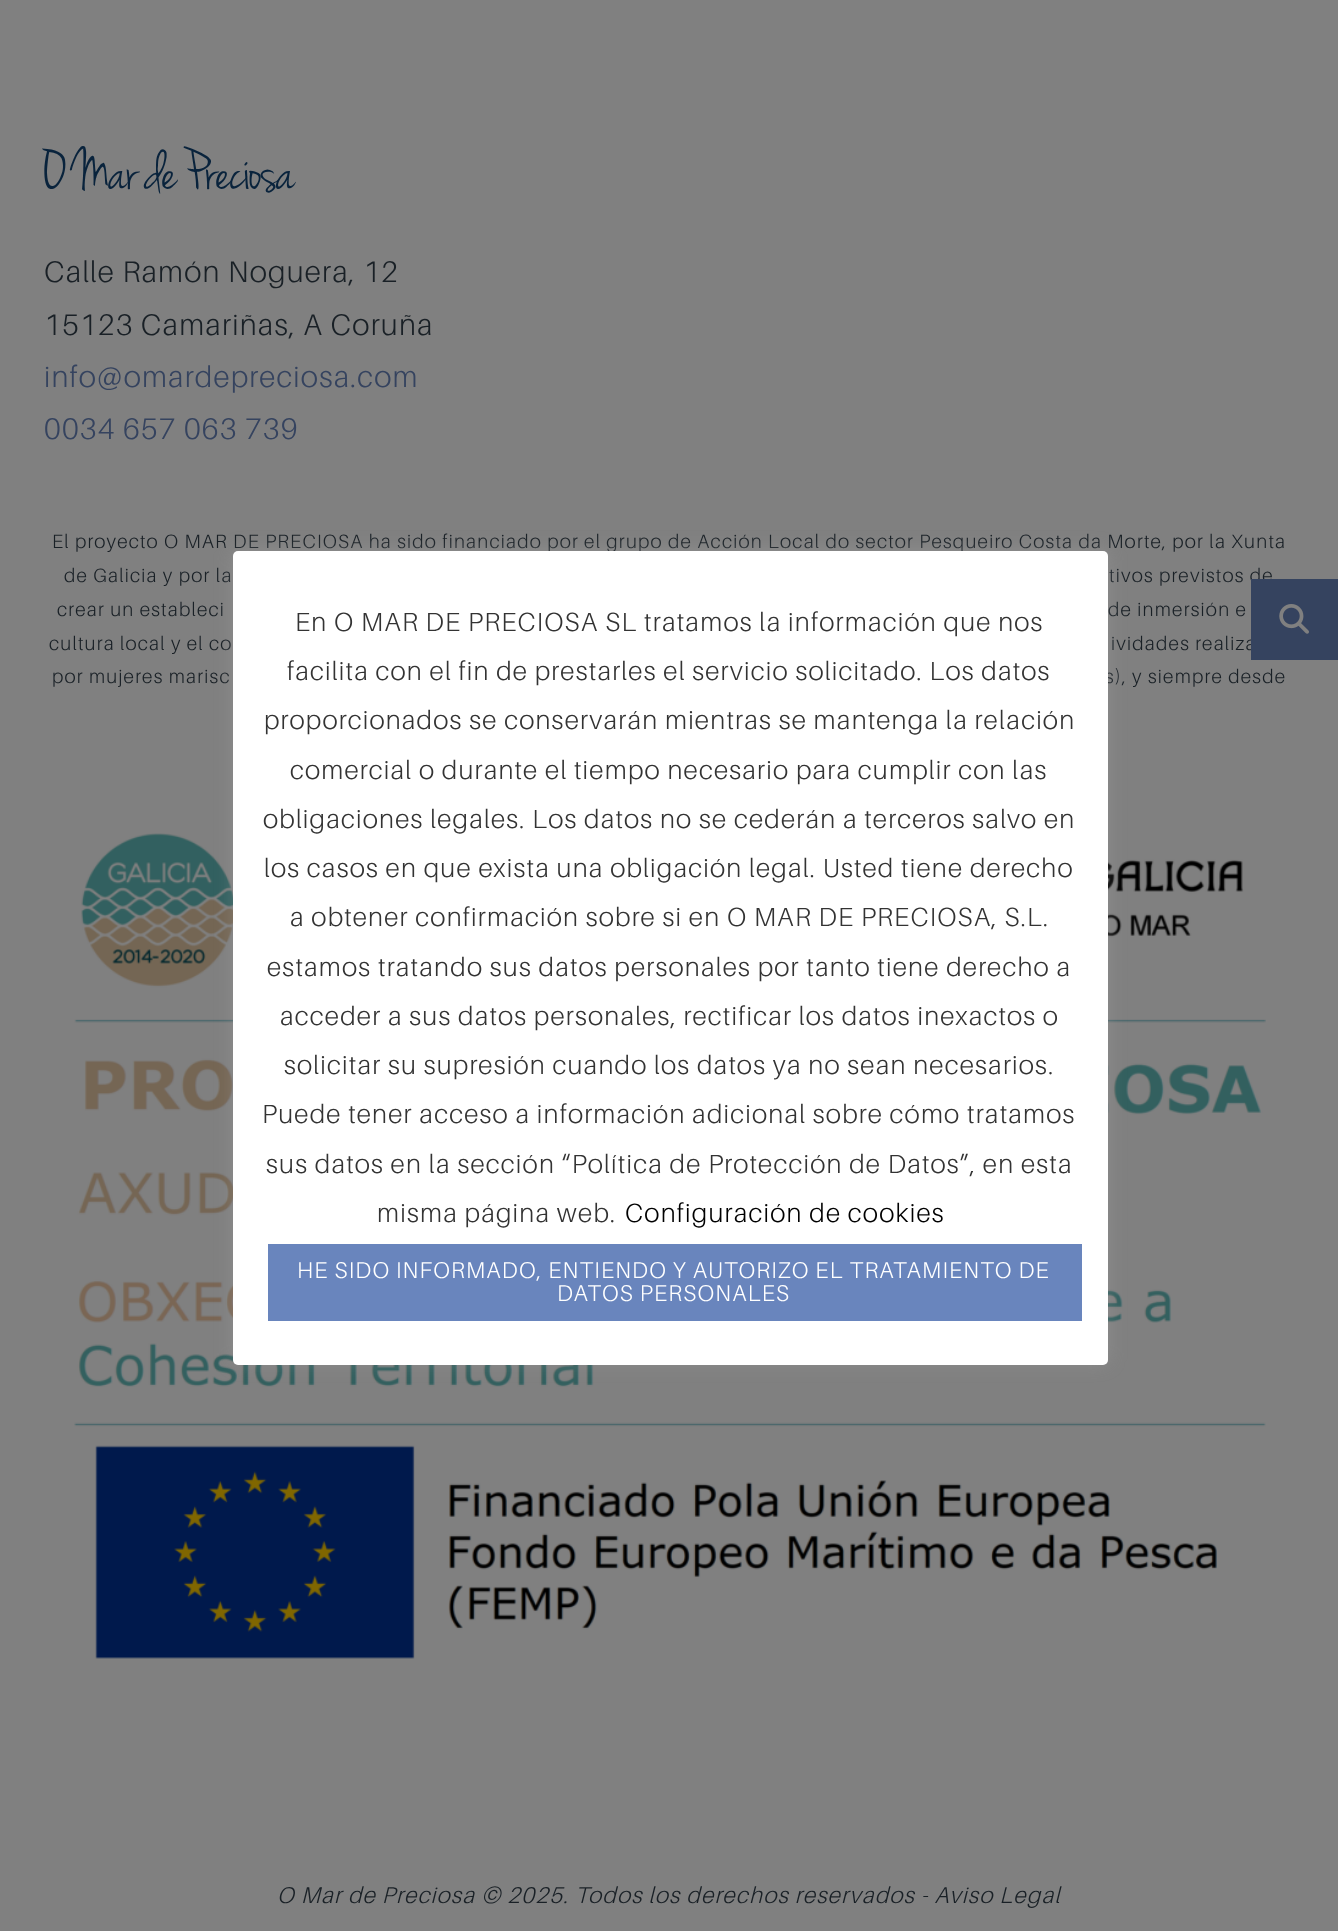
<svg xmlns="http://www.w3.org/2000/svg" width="1338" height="1931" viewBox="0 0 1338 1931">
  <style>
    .t1 { font: 61.25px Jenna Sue; letter-spacing: -1.25px; fill: #09233c; }
    .t2 { font: 300 29.75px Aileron; letter-spacing: 1.22px; fill: #192026; }
    .t3 { font: 300 29.75px Aileron; letter-spacing: 1.22px; fill: #35435f; }
    .t4 { font: 300 19.25px Aileron; letter-spacing: 1.22px; fill: #192026; }
    .t5 { font: italic 300 22.75px Aileron; letter-spacing: 1.22px; fill: #192026; }
    .t6 { font: 300 26.25px Aileron; letter-spacing: 1.22px; fill: #333; }
    .t7 { font: 300 26.25px Aileron; letter-spacing: 1.22px; fill: #000; }
    .t8 { font: 300 22.75px Aileron; letter-spacing: 1.22px; fill: #fff; }
  </style>
  <rect width="100%" height="100%" fill="#808080"/>
  <text x="44" y="189" class="t1">O Mar de Preciosa</text>
  <text x="44" y="282" class="t2">Calle Ramón Noguera, 12</text>
  <text x="44" y="335" class="t2">15123 Camariñas, A Coruña</text>
  <text x="44" y="387" class="t3">info@omardepreciosa.com</text>
  <text x="44" y="439" class="t3">0034 657 063 739</text>
  <text x="52" y="548" class="t4">El proyecto O MAR DE PRECIOSA ha sido financiado por el grupo de Acción Local do sector Pesqueiro Costa da Morte, por la Xunta</text>
  <text x="64" y="582" class="t4">de Galicia y por la</text>
  <text x="1109" y="582" class="t4">tivos previstos de</text>
  <text x="57" y="616" class="t4">crear un estableci</text>
  <text x="1108" y="616" class="t4">de inmersión e</text>
  <text x="49" y="650" class="t4">cultura local y el co</text>
  <text x="1111" y="650" class="t4">ividades realiza</text>
  <text x="52" y="683" class="t4">por mujeres marisc</text>
  <text x="1105" y="683" class="t4">s), y siempre desde</text>
  <image x="74" y="833" width="1192" height="826" href="images/1.png"/>
  <text x="277" y="1903" class="t5">O Mar de Preciosa © 2025. Todos los derechos reservados - Aviso Legal</text>
  <rect x="1251" y="579" width="87" height="81" fill="#35435f"/>
  <image x="1279" y="604" width="30" height="30" href="images/2.png"/>
  <rect x="233" y="550" width="875" height="813" rx="5" fill="#acabab4d" filter="blur(9px)"/>
  <rect x="233" y="551" width="875" height="814" rx="5" fill="#fff"/>
  <text x="295" y="631" class="t6">En O MAR DE PRECIOSA SL tratamos la información que nos</text>
  <text x="287" y="680" class="t6">facilita con el fin de prestarles el servicio solicitado. Los datos</text>
  <text x="264" y="729" class="t6">proporcionados se conservarán mientras se mantenga la relación</text>
  <text x="290" y="779" class="t6">comercial o durante el tiempo necesario para cumplir con las</text>
  <text x="263" y="828" class="t6">obligaciones legales. Los datos no se cederán a terceros salvo en</text>
  <text x="264" y="877" class="t6">los casos en que exista una obligación legal. Usted tiene derecho</text>
  <text x="290" y="926" class="t6">a obtener confirmación sobre si en O MAR DE PRECIOSA, S.L.</text>
  <text x="267" y="976" class="t6">estamos tratando sus datos personales por tanto tiene derecho a</text>
  <text x="280" y="1025" class="t6">acceder a sus datos personales, rectificar los datos inexactos o</text>
  <text x="284" y="1074" class="t6">solicitar su supresión cuando los datos ya no sean necesarios.</text>
  <text x="262" y="1123" class="t6">Puede tener acceso a información adicional sobre cómo tratamos</text>
  <text x="266" y="1173" class="t6">sus datos en la sección “Política de Protección de Datos”, en esta</text>
  <text x="377" y="1222" class="t6">misma página web.</text>
  <text x="625" y="1222" class="t7">Configuración de cookies</text>
  <rect x="268" y="1244" width="814" height="77" fill="#6985bd"/>
  <text x="297" y="1278" class="t8">HE SIDO INFORMADO, ENTIENDO Y AUTORIZO EL TRATAMIENTO DE</text>
  <text x="557" y="1301" class="t8">DATOS PERSONALES</text>
</svg>
